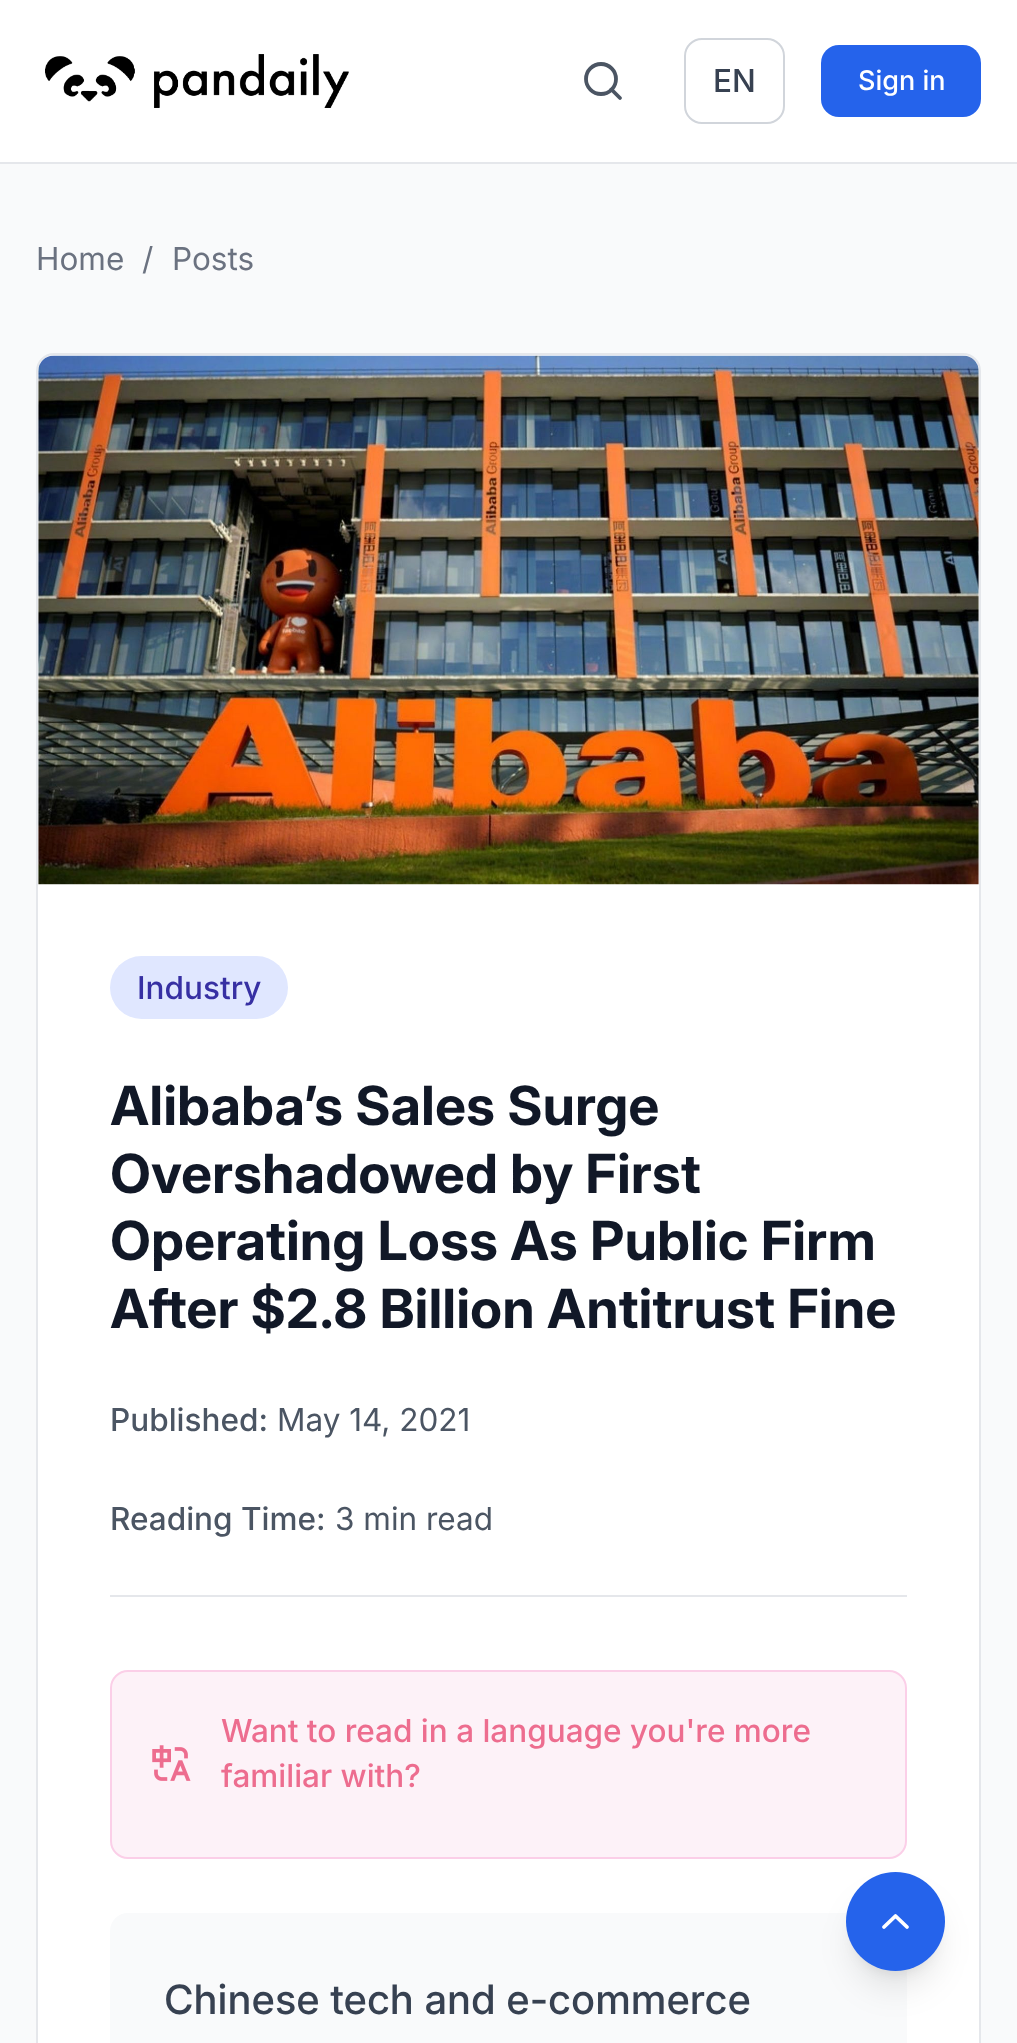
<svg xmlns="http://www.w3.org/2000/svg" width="1017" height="2043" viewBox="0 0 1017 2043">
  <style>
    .t1 { font: 500 31.5px Inter; fill: #374151; }
    .t2 { font: 500 27px Inter; fill: #fff; }
    .t3 { font: 31.5px Inter; fill: #6b7280; }
    .t4 { font: 500 31.5px Inter; fill: #3730a3; }
    .t5 { font: bold 54px Inter; fill: #111827; }
    .t6 { font: 500 31.5px Inter; fill: #4b5563; }
    .t7 { font: 31.5px Inter; fill: #4b5563; }
    .t8 { font: 500 31.5px Inter; fill: #ed6d8f; }
    .t9 { font: 500 40.5px 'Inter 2'; fill: #374151; }
  </style>
  <rect width="100%" height="100%" fill="#fff"/>
  <rect x="0" y="162" width="1017" height="2" fill="#e5e7eb"/>
  <image x="45" y="54" width="304" height="54" href="images/1.png"/>
  <path d="M620 98L611.5 89.5" fill="none" stroke="#4b5563" stroke-width="3.8" stroke-linecap="round" stroke-linejoin="round"/>
  <circle cx="601" cy="79" r="15" fill="none" stroke="#4b5563" stroke-width="3.8"/>
  <rect x="685" y="39" width="99" height="84" rx="17" fill="none" stroke="#d1d5db" stroke-width="2"/>
  <text x="713" y="92" class="t1">EN</text>
  <rect x="821" y="45" width="160" height="72" rx="18" fill="#2563eb"/>
  <text x="858" y="90" class="t2">Sign in</text>
  <rect x="0" y="164" width="1017" height="1879" fill="#f9fafb"/>
  <text x="36" y="270" class="t3">Home</text>
  <text x="142" y="270" class="t3">/</text>
  <text x="172" y="270" class="t3">Posts</text>
  <rect x="37" y="354" width="943" height="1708" rx="17" fill="#fff" stroke="#e5e7eb" stroke-width="2"/>
  <image x="38" y="355" width="941" height="530" href="images/2.png"/>
  <rect x="110" y="956" width="178" height="63" rx="31.5" fill="#e0e7ff"/>
  <text x="137" y="999" class="t4">Industry</text>
  <text x="110" y="1125" class="t5">Alibaba’s Sales Surge</text>
  <text x="110" y="1193" class="t5">Overshadowed by First</text>
  <text x="110" y="1260" class="t5">Operating Loss As Public Firm</text>
  <text x="110" y="1328" class="t5">After $2.8 Billion Antitrust Fine</text>
  <rect x="110" y="1595" width="797" height="2" fill="#e5e7eb"/>
  <text x="110" y="1431" class="t6">Published:</text>
  <text x="277" y="1431" class="t7">May 14, 2021</text>
  <text x="110" y="1530" class="t6">Reading Time:</text>
  <text x="335" y="1530" class="t7">3 min read</text>
  <rect x="111" y="1671" width="795" height="187" rx="17" fill="#fdf2f8" stroke="#fbcfe8" stroke-width="2"/>
  <image x="152" y="1745" width="39" height="36" href="images/3.png"/>
  <text x="221" y="1742" class="t8">Want to read in a language you're more</text>
  <text x="221" y="1787" class="t8">familiar with?</text>
  <rect x="110" y="1913" width="797" height="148" rx="18" fill="#f9fafb"/>
  <text x="164" y="2014" class="t9">Chinese tech and e-commerce</text>
  <rect x="855" y="1890" width="81" height="81" rx="40.5" fill="#0000001a" filter="blur(7px)"/>
  <rect x="853" y="1901" width="85" height="86" rx="42.5" fill="#0000001a" filter="blur(17px)"/>
  <circle cx="895.5" cy="1921.5" r="49.5" fill="#2563eb"/>
  <path d="M907 1927L895.5 1916L884 1927" fill="none" stroke="#fff" stroke-width="3.8" stroke-linecap="round" stroke-linejoin="round"/>
</svg>
